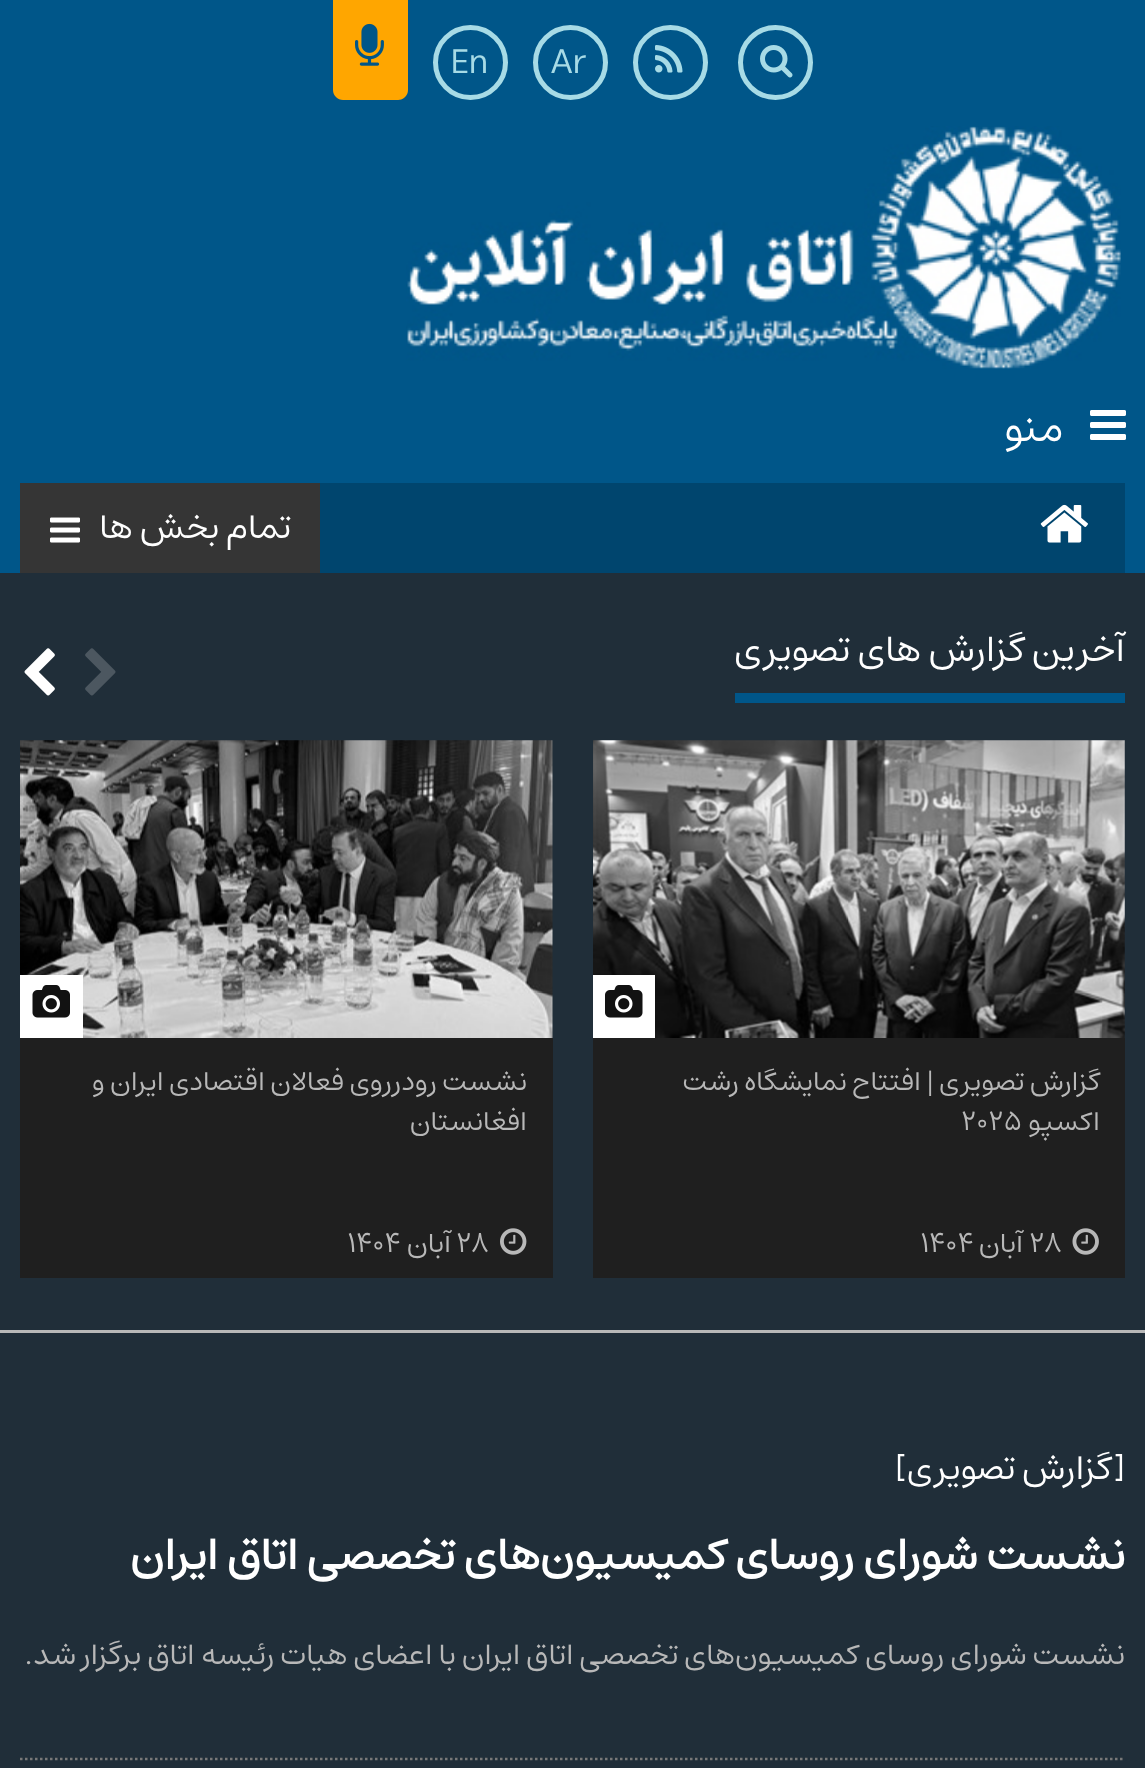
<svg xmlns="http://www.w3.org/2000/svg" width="1145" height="1768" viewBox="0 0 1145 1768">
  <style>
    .t1 { font: 35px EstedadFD; fill: #a7dbe6; }
    .t2 { font: 42px EstedadFD; direction: rtl; fill: #fff; }
    .t3 { font: 35px EstedadFD; direction: rtl; fill: #fff; }
    .t4 { font: 37.5px EstedadFD; direction: rtl; fill: #fff; }
    .t5 { font: 27.5px EstedadFD; direction: rtl; fill: #b8b8b8; }
    .t6 { font: 27.5px EstedadFD; fill: #b8b8b8; }
    .t7 { font: 28px EstedadFD; fill: #b8b8b8; }
    .t8 { font: 28px EstedadFD; direction: rtl; fill: #b8b8b8; }
    .t9 { font: bold 45px EstedadFD; direction: rtl; fill: #fff; }
    .t10 { font: 30px EstedadFD; direction: rtl; fill: #b8b8b8; }
  </style>
  <rect width="100%" height="100%" fill="#005689"/>
  <circle cx="775.5" cy="62.5" r="35" fill="none" stroke="#a7dbe6" stroke-width="5"/>
  <image x="760" y="45" width="33" height="33" href="images/1.png"/>
  <circle cx="670.5" cy="62.5" r="35" fill="none" stroke="#a7dbe6" stroke-width="5"/>
  <image x="655" y="45" width="28" height="28" href="images/2.png"/>
  <circle cx="570.5" cy="62.5" r="35" fill="none" stroke="#a7dbe6" stroke-width="5"/>
  <text x="551" y="73" class="t1">Ar</text>
  <circle cx="470.5" cy="62.5" r="35" fill="none" stroke="#a7dbe6" stroke-width="5"/>
  <text x="450" y="73" class="t1">En</text>
  <path d="M333 0H408V90C408 95.5 403.5 100 398 100H343C337.5 100 333 95.5 333 90Z" fill="#ffa600"/>
  <image x="355" y="23" width="29" height="43" href="images/3.png"/>
  <image x="406" y="126" width="715" height="243" href="images/4.png"/>
  <image x="1090" y="410" width="36" height="30" href="images/5.png"/>
  <text x="1064" y="441" class="t2">منو</text>
  <rect x="320" y="483" width="805" height="90" fill="#00456e"/>
  <image x="1040" y="504" width="48" height="39" href="images/6.png"/>
  <rect x="20" y="483" width="300" height="90" fill="#353535"/>
  <text x="291" y="538" class="t3">تمام بخش ها</text>
  <image x="50" y="517" width="30" height="26" href="images/7.png"/>
  <rect x="0" y="573" width="1145" height="757" fill="#202e39"/>
  <text x="1125" y="661" class="t4">آخرین گزارش های تصویری</text>
  <rect x="735" y="693" width="390" height="10" fill="#005689"/>
  <image x="85" y="648" width="31" height="48" href="images/8.png"/>
  <image x="24" y="648" width="31" height="48" href="images/9.png"/>
  <image x="593" y="740" width="532" height="298" href="images/10.png"/>
  <rect x="593" y="975" width="62" height="63" fill="#fff"/>
  <image x="605" y="985" width="38" height="33" href="images/11.png"/>
  <rect x="593" y="1038" width="532" height="240" fill="#1f1f1f"/>
  <text x="1100" y="1090" class="t5">گزارش تصویری | افتتاح نمایشگاه رشت</text>
  <text x="1100" y="1130" class="t5">اکسپو</text>
  <text x="961" y="1130" class="t6">۲۰۲۵</text>
  <image x="1072" y="1228" width="27" height="27" href="images/12.png"/>
  <text x="1029" y="1252" class="t7">28</text>
  <text x="1023" y="1252" class="t8">آبان</text>
  <text x="920" y="1252" class="t7">1404</text>
  <image x="20" y="740" width="533" height="298" href="images/13.png"/>
  <rect x="20" y="975" width="63" height="63" fill="#fff"/>
  <image x="32" y="985" width="38" height="33" href="images/14.png"/>
  <rect x="20" y="1038" width="533" height="240" fill="#1f1f1f"/>
  <text x="527" y="1090" class="t5">نشست رودرروی فعالان اقتصادی ایران و</text>
  <text x="527" y="1130" class="t5">افغانستان</text>
  <image x="500" y="1228" width="27" height="27" href="images/15.png"/>
  <text x="456" y="1252" class="t7">28</text>
  <text x="451" y="1252" class="t8">آبان</text>
  <text x="347" y="1252" class="t7">1404</text>
  <rect x="0" y="1333" width="1145" height="435" fill="#202e39"/>
  <rect x="0" y="1330" width="1145" height="3" fill="#b8b8b8"/>
  <text x="1125" y="1479" class="t3">[گزارش تصویری]</text>
  <text x="1125" y="1569" class="t9">نشست شورای روسای کمیسیون‌های تخصصی اتاق ایران</text>
  <text x="1125" y="1664" class="t10">نشست شورای روسای کمیسیون‌های تخصصی اتاق ایران با اعضای هیات رئیسه اتاق برگزار شد.</text>
  <path d="M20 1759H1125" fill="none" stroke="#787878" stroke-width="2.5" stroke-dasharray="2.5 2.5"/>
</svg>
